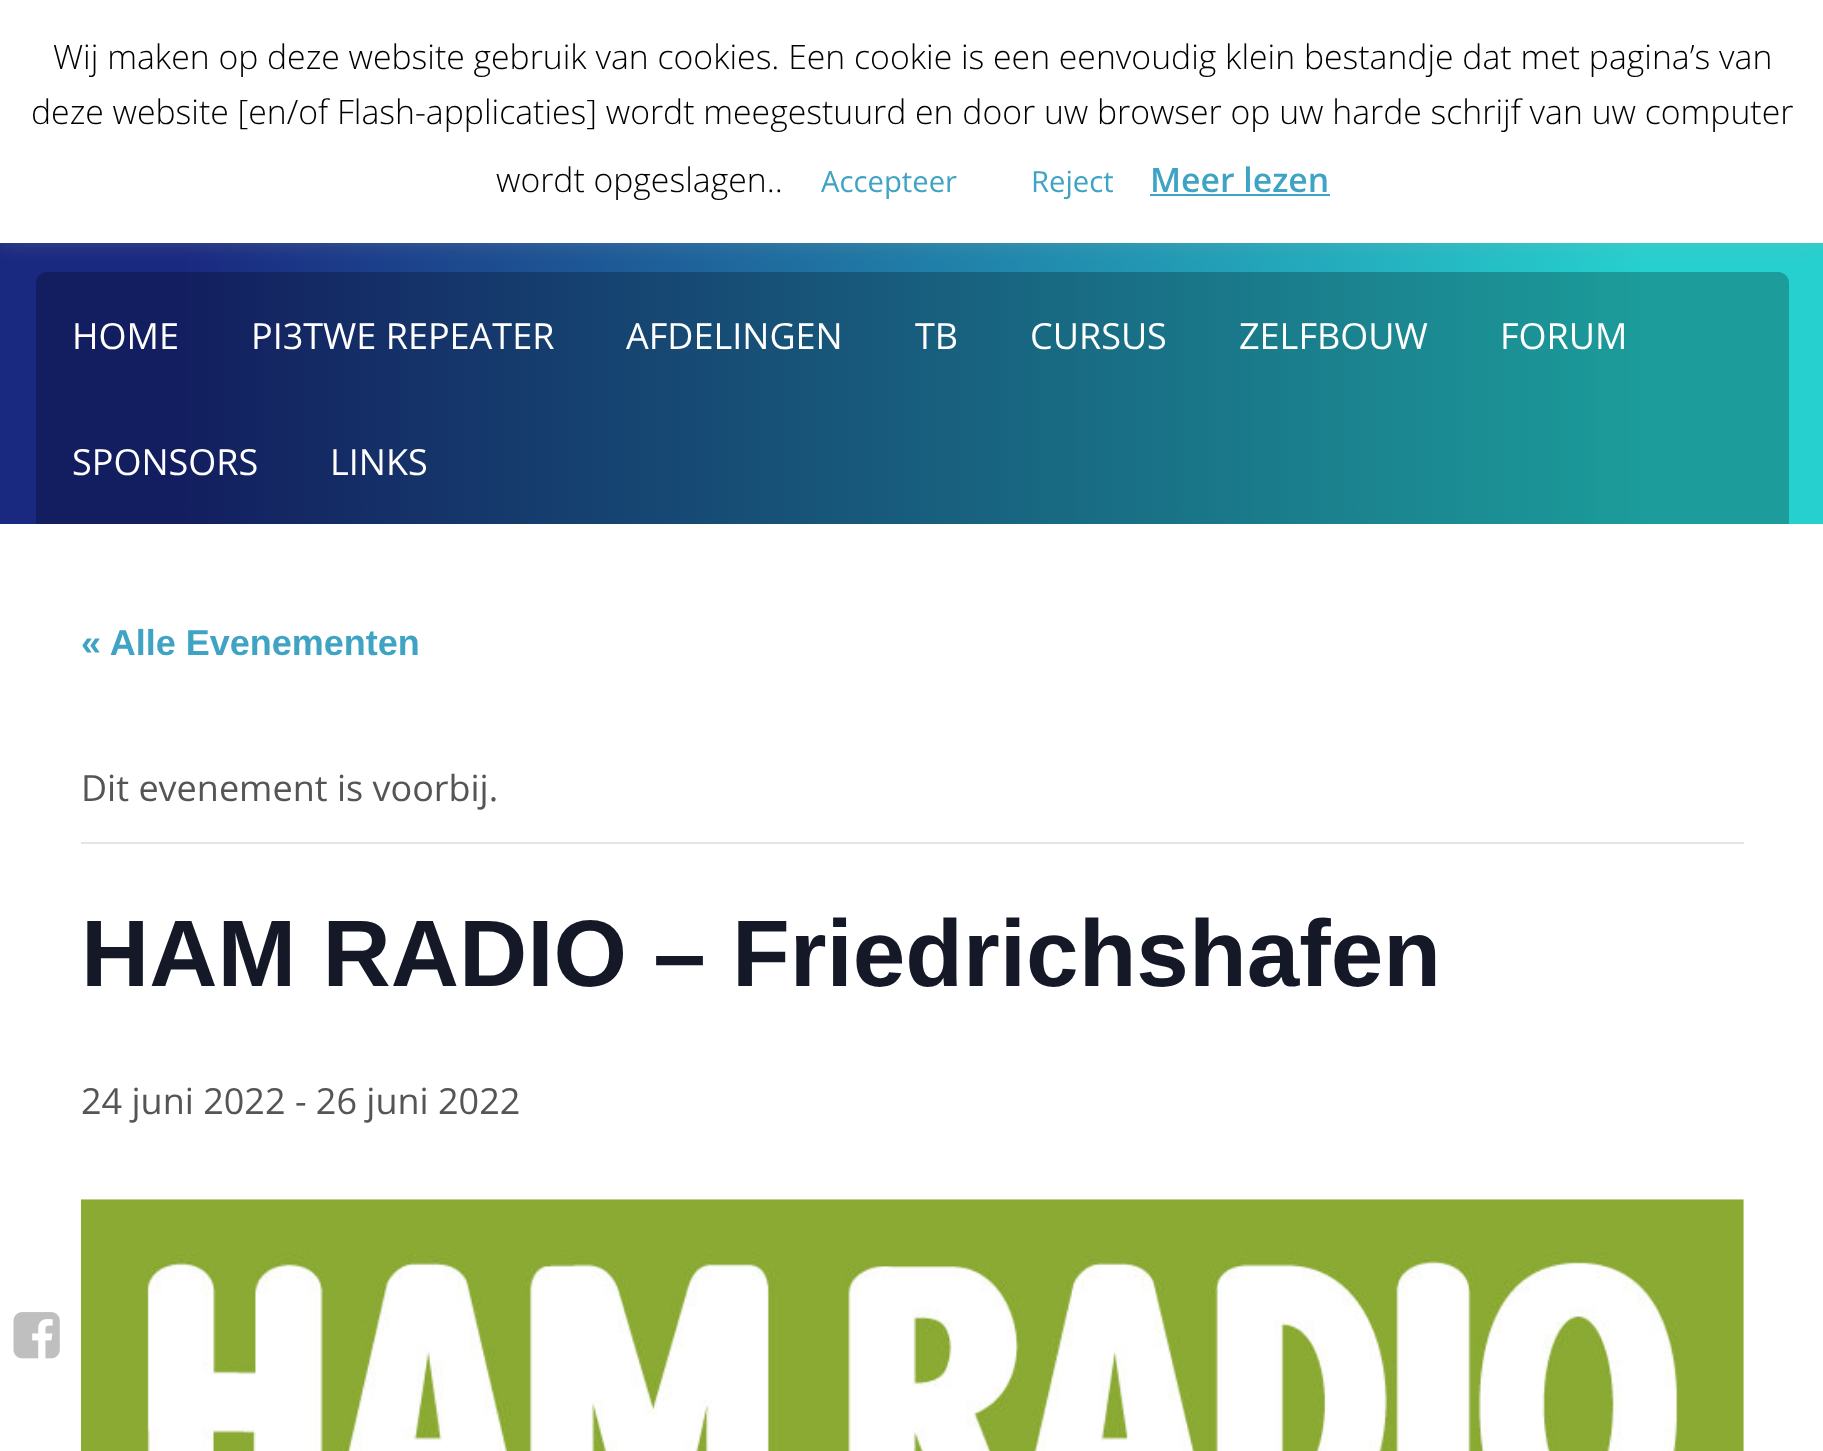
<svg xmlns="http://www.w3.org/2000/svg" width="1823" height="1451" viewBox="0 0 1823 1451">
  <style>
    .t1 { font: 300 33.75px Open Sans; fill: #000; }
    .t2 { font: 29.25px Open Sans; fill: #3fa3c4; }
    .t3 { font: 600 33.75px Open Sans; fill: #3fa3c4; }
    .t4 { font: 36px Open Sans; fill: #fff; }
    .t5 { font: bold 36px Liberation Sans; fill: #3fa3c4; }
    .t6 { font: 36px Open Sans; fill: #555; }
    .t7 { font: bold 94.5px Liberation Sans; fill: #141827; }
  </style>
  <defs>
    <linearGradient id="g1" gradientUnits="userSpaceOnUse" x1="0" y1="262" x2="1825" y2="262"><stop offset="0.1" stop-color="#1a2980"/><stop offset="0.9" stop-color="#26d0ce"/></linearGradient>
  </defs>
  <rect width="100%" height="100%" fill="#fff"/>
  <rect x="0" y="243" width="1823" height="281" fill="url(#g1)"/>
  <path d="M47 272H1778C1784 272 1789 277 1789 283V524H36V283C36 277 41 272 47 272Z" fill="#00000040"/>
  <rect x="0" y="-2" width="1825" height="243" fill="#acabab4d" filter="blur(11px)"/>
  <rect x="0" y="0" width="1823" height="243" fill="#fff"/>
  <text x="53" y="69" class="t1">Wij maken op deze website gebruik van cookies. Een cookie is een eenvoudig klein bestandje dat met pagina’s van</text>
  <text x="31" y="124" class="t1">deze website [en/of Flash-applicaties] wordt meegestuurd en door uw browser op uw harde schrijf van uw computer</text>
  <text x="496" y="192" class="t1">wordt opgeslagen..</text>
  <text x="821" y="192" class="t2">Accepteer</text>
  <text x="1031" y="192" class="t2">Reject</text>
  <text x="1150" y="192" class="t3">Meer lezen</text>
  <rect x="1150" y="194" width="180" height="2" fill="#3fa3c4"/>
  <text x="72" y="349" class="t4">HOME</text>
  <text x="251" y="349" class="t4">PI3TWE REPEATER</text>
  <text x="626" y="349" class="t4">AFDELINGEN</text>
  <text x="915" y="349" class="t4">TB</text>
  <text x="1030" y="349" class="t4">CURSUS</text>
  <text x="1239" y="349" class="t4">ZELFBOUW</text>
  <text x="1500" y="349" class="t4">FORUM</text>
  <text x="72" y="475" class="t4">SPONSORS</text>
  <text x="330" y="475" class="t4">LINKS</text>
  <text x="81" y="655" class="t5">« Alle Evenementen</text>
  <rect x="81" y="842" width="1663" height="2" fill="#e4e4e4"/>
  <text x="81" y="801" class="t6">Dit evenement is voorbij.</text>
  <text x="81" y="986" class="t7">HAM RADIO – Friedrichshafen</text>
  <text x="81" y="1114" class="t6">24 juni 2022 - 26 juni 2022</text>
  <image x="81" y="1199" width="1663" height="252" href="images/1.png"/>
  <image x="13" y="1312" width="47" height="47" href="images/2.png"/>
</svg>
